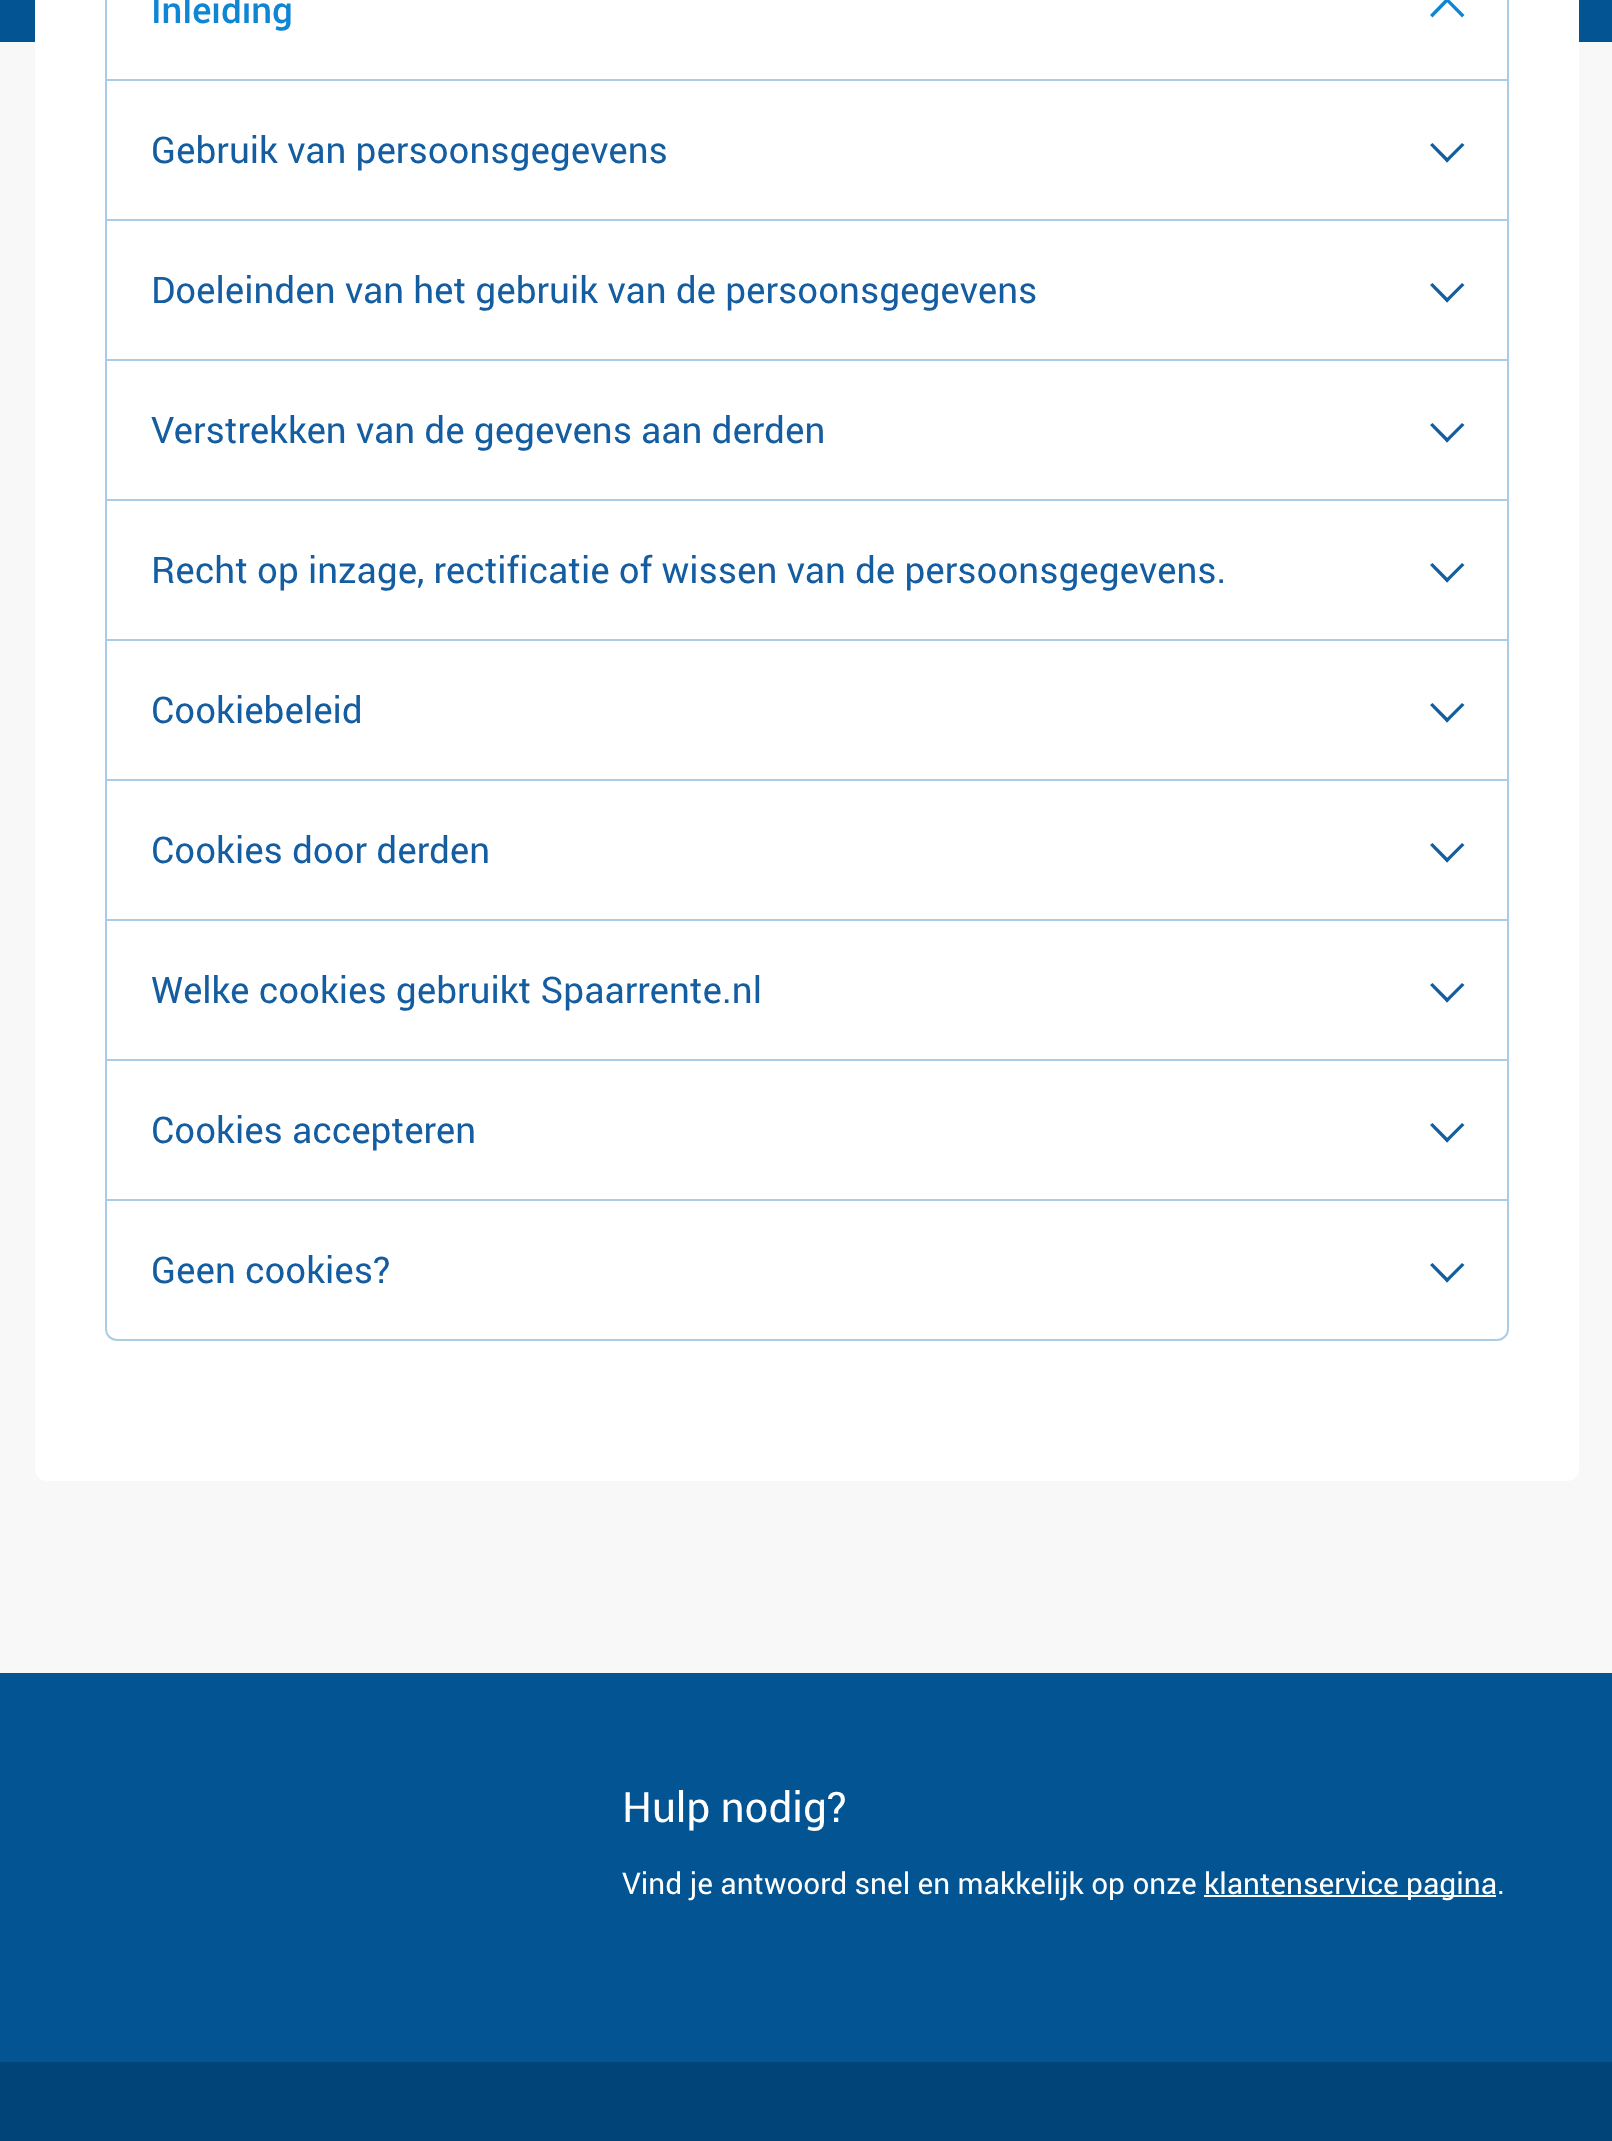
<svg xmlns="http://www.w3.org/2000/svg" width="1612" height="2141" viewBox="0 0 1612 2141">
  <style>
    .t1 { font: 500 36.75px Roboto; fill: #0e86d4; }
    .t2 { font: 36.75px Roboto; fill: #145da0; }
    .t3 { font: 42px Roboto; fill: #fff; }
    .t4 { font: 29.75px Roboto; fill: #fff; }
  </style>
  <rect width="100%" height="100%" fill="#f8f8f9"/>
  <rect x="0" y="0" width="1612" height="42" fill="#025492"/>
  <rect x="35" y="-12" width="1544" height="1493" rx="12" fill="#fff"/>
  <rect x="106" y="-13" width="1402" height="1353" rx="11" fill="none" stroke="#aacde5" stroke-width="2"/>
  <rect x="107" y="79" width="1400" height="2" fill="#aacde5"/>
  <text x="151" y="23" class="t1">Inleiding</text>
  <path d="M1432.5 17.5L1430 15L1447-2.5L1449.5 0Z" fill="#0e86d4"/>
  <path d="M1462 17.5L1445 0L1447-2.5L1464.5 15Z" fill="#0e86d4"/>
  <rect x="107" y="219" width="1400" height="2" fill="#aacde5"/>
  <text x="151" y="163" class="t2">Gebruik van persoonsgegevens</text>
  <path d="M1462 143L1464.5 145L1447 162.5L1445 160Z" fill="#145da0"/>
  <path d="M1432.5 143L1449.5 160L1447 162.5L1430 145Z" fill="#145da0"/>
  <rect x="107" y="359" width="1400" height="2" fill="#aacde5"/>
  <text x="151" y="303" class="t2">Doeleinden van het gebruik van de persoonsgegevens</text>
  <path d="M1462 283L1464.5 285L1447 302.5L1445 300Z" fill="#145da0"/>
  <path d="M1432.5 283L1449.5 300L1447 302.5L1430 285Z" fill="#145da0"/>
  <rect x="107" y="499" width="1400" height="2" fill="#aacde5"/>
  <text x="151" y="443" class="t2">Verstrekken van de gegevens aan derden</text>
  <path d="M1462 423L1464.5 425L1447 442.5L1445 440Z" fill="#145da0"/>
  <path d="M1432.5 423L1449.5 440L1447 442.5L1430 425Z" fill="#145da0"/>
  <rect x="107" y="639" width="1400" height="2" fill="#aacde5"/>
  <text x="151" y="583" class="t2">Recht op inzage, rectificatie of wissen van de persoonsgegevens.</text>
  <path d="M1462 563L1464.5 565L1447 582.5L1445 580Z" fill="#145da0"/>
  <path d="M1432.5 563L1449.5 580L1447 582.5L1430 565Z" fill="#145da0"/>
  <rect x="107" y="779" width="1400" height="2" fill="#aacde5"/>
  <text x="151" y="723" class="t2">Cookiebeleid</text>
  <path d="M1462 703L1464.5 705L1447 722.5L1445 720Z" fill="#145da0"/>
  <path d="M1432.5 703L1449.5 720L1447 722.5L1430 705Z" fill="#145da0"/>
  <rect x="107" y="919" width="1400" height="2" fill="#aacde5"/>
  <text x="151" y="863" class="t2">Cookies door derden</text>
  <path d="M1462 843L1464.5 845L1447 862.5L1445 860Z" fill="#145da0"/>
  <path d="M1432.5 843L1449.5 860L1447 862.5L1430 845Z" fill="#145da0"/>
  <rect x="107" y="1059" width="1400" height="2" fill="#aacde5"/>
  <text x="151" y="1003" class="t2">Welke cookies gebruikt Spaarrente.nl</text>
  <path d="M1462 983L1464.5 985L1447 1002.5L1445 1000Z" fill="#145da0"/>
  <path d="M1432.5 983L1449.5 1000L1447 1002.5L1430 985Z" fill="#145da0"/>
  <rect x="107" y="1199" width="1400" height="2" fill="#aacde5"/>
  <text x="151" y="1143" class="t2">Cookies accepteren</text>
  <path d="M1462 1123L1464.5 1125L1447 1142.5L1445 1140Z" fill="#145da0"/>
  <path d="M1432.5 1123L1449.5 1140L1447 1142.5L1430 1125Z" fill="#145da0"/>
  <text x="151" y="1283" class="t2">Geen cookies?</text>
  <path d="M1462 1263L1464.5 1265L1447 1282.5L1445 1280Z" fill="#145da0"/>
  <path d="M1432.5 1263L1449.5 1280L1447 1282.5L1430 1265Z" fill="#145da0"/>
  <rect x="0" y="1673" width="1612" height="389" fill="#025492"/>
  <text x="622" y="1822" class="t3">Hulp nodig?</text>
  <text x="622" y="1894" class="t4">Vind je antwoord snel en makkelijk op onze</text>
  <rect x="1204" y="1895" width="292" height="2" fill="#fff"/>
  <text x="1204" y="1894" class="t4">klantenservice pagina.</text>
  <rect x="0" y="2062" width="1612" height="79" fill="#004478"/>
</svg>
